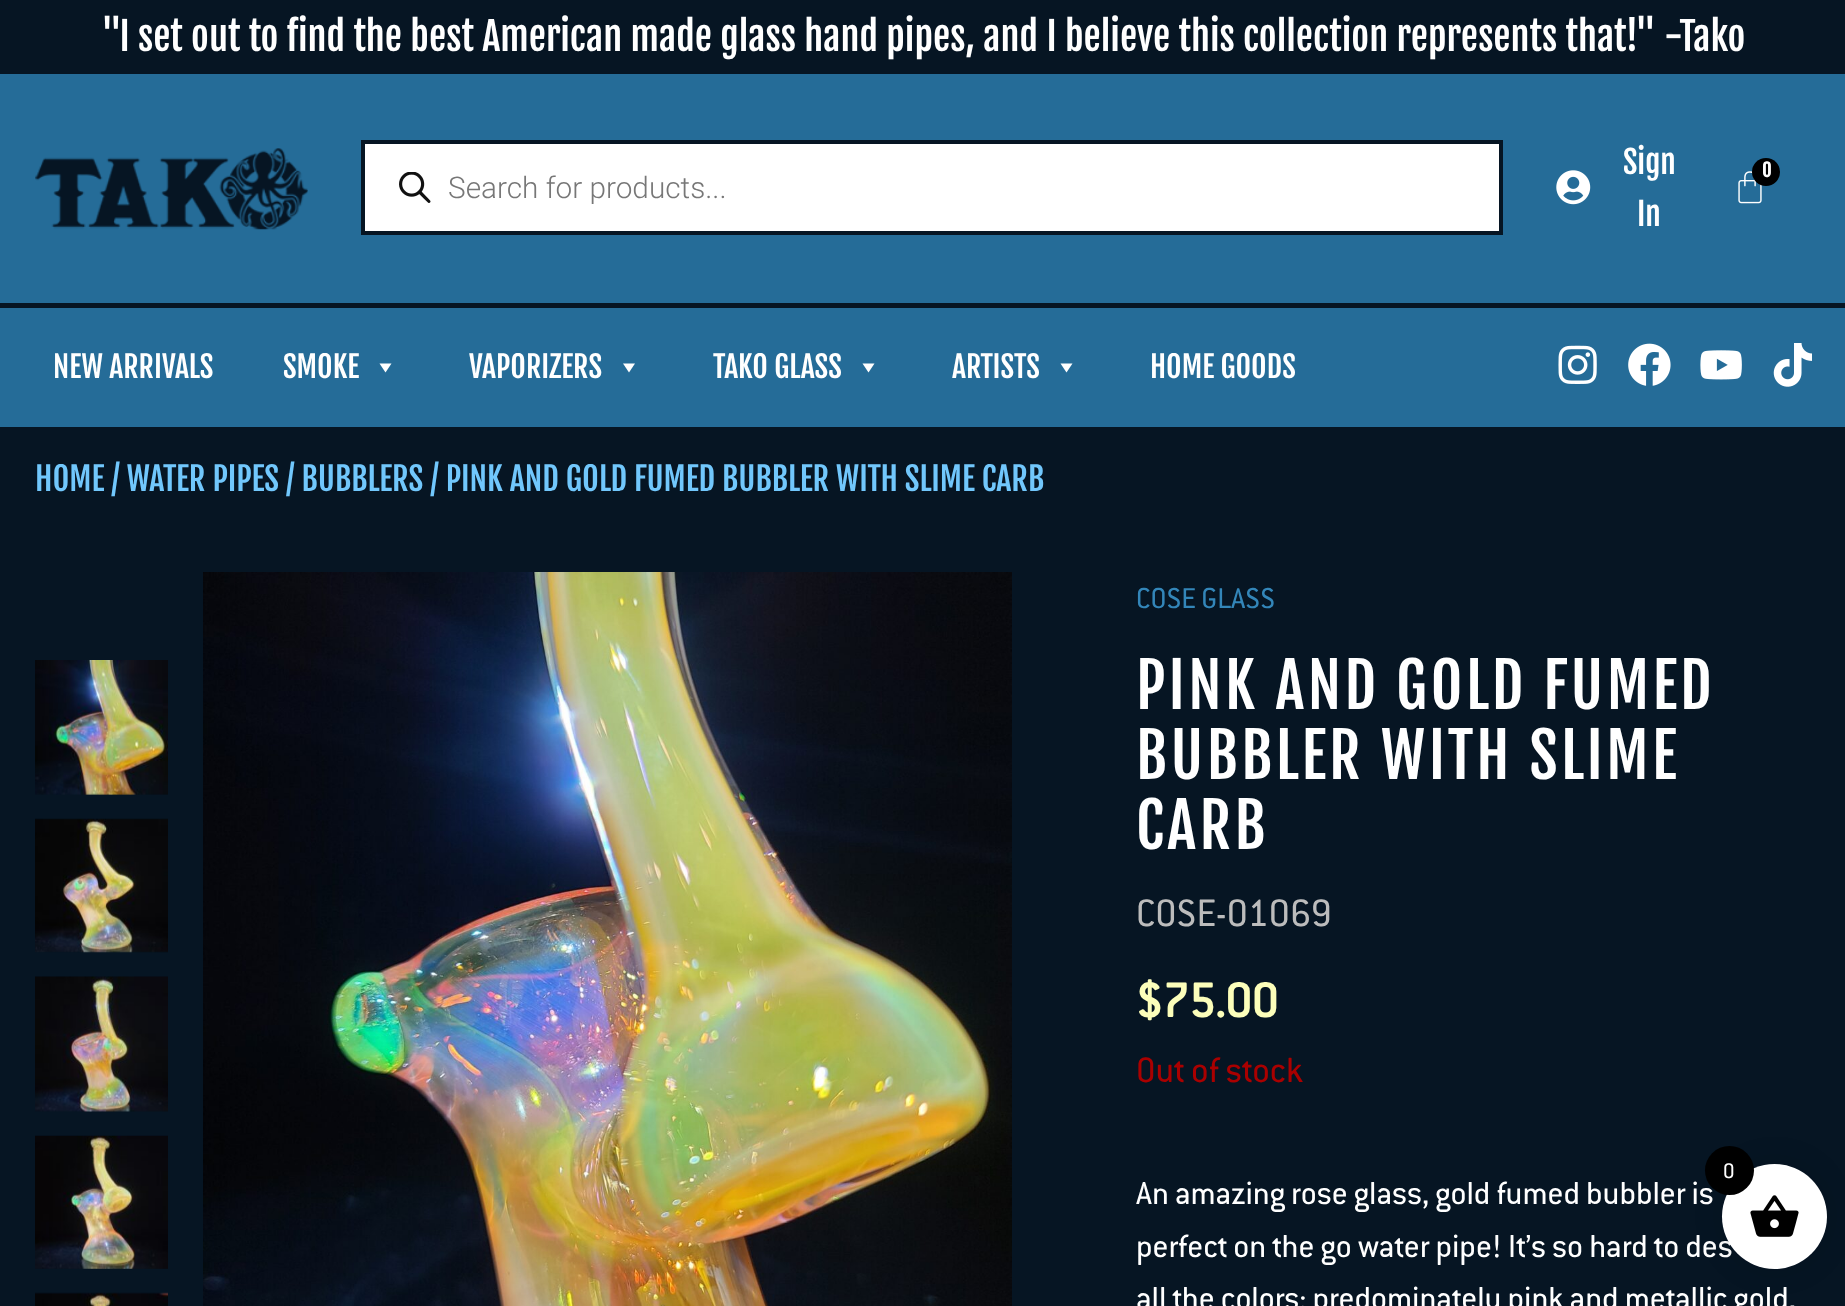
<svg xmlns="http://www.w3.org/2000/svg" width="1845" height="1306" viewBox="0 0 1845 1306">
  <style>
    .t1 { font: 38.5px Fjalla One; fill: #fff; }
    .t2 { font: 300 29.75px Roboto; fill: #777; }
    .t3 { font: 31.5px Fjalla One; fill: #fff; }
    .t4 { font: bold 18px Fjalla One; fill: #fff; }
    .t5 { font: 29.75px Fjalla One; fill: #fff; }
    .t6 { font: 32.2px Fjalla One; fill: #71c7fc; }
    .t7 { font: 31.5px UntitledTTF; fill: #3386b9; }
    .t8 { font: 61.25px Fjalla One; letter-spacing: 3.5px; fill: #fff; }
    .t9 { font: 42px UntitledTTF; fill: #bcbcbc; }
    .t10 { font: bold 52.5px UntitledTTF; fill: #fcfeba; }
    .t11 { font: 38.5px UntitledTTF; fill: #a00; }
    .t12 { font: 35px UntitledTTF; fill: #fff; }
    .t13 { font: 23px UntitledTTF; fill: #fff; }
  </style>
  <rect width="100%" height="100%" fill="#061523"/>
  <text x="101" y="51" class="t1">"I set out to find the best American made glass hand pipes, and I believe this collection represents that!" -Tako</text>
  <rect x="0" y="74" width="1845" height="229" fill="#256c98"/>
  <image x="35" y="148" width="273" height="82" href="images/1.png"/>
  <rect x="363" y="142" width="1138" height="91" fill="#fff" stroke="#061523" stroke-width="4"/>
  <image x="399" y="172" width="32" height="31" href="images/2.png"/>
  <text x="448" y="198" class="t2">Search for products...</text>
  <image x="1556" y="170" width="35" height="35" href="images/3.png"/>
  <text x="1623" y="174" class="t3">Sign</text>
  <text x="1637" y="226" class="t3">In</text>
  <image x="1738" y="171" width="24" height="33" href="images/4.png"/>
  <circle cx="1766" cy="172" r="14" fill="#000"/>
  <text x="1762" y="177" class="t4">0</text>
  <rect x="0" y="308" width="1845" height="119" fill="#256c98"/>
  <text x="53" y="378" class="t5">NEW ARRIVALS</text>
  <text x="283" y="378" class="t5">SMOKE</text>
  <path d="M391.5 363.5L385.5 372.5L379.5 363.5Z" fill="#fff"/>
  <text x="469" y="378" class="t5">VAPORIZERS</text>
  <path d="M635 363.5L629 372.5L623 363.5Z" fill="#fff"/>
  <text x="713" y="378" class="t5">TAKO GLASS</text>
  <path d="M874.5 363.5L868.5 372.5L862.5 363.5Z" fill="#fff"/>
  <text x="952" y="378" class="t5">ARTISTS</text>
  <path d="M1072.5 363.5L1066.5 372.5L1060.5 363.5Z" fill="#fff"/>
  <text x="1150" y="378" class="t5">HOME GOODS</text>
  <image x="1558" y="345" width="39" height="39" href="images/5.png"/>
  <image x="1628" y="343" width="43" height="43" href="images/6.png"/>
  <image x="1700" y="350" width="42" height="30" href="images/7.png"/>
  <image x="1773" y="343" width="39" height="44" href="images/8.png"/>
  <text x="35" y="491" class="t6">HOME / WATER PIPES / BUBBLERS / PINK AND GOLD FUMED BUBBLER WITH SLIME CARB</text>
  <image x="35" y="660" width="133" height="135" href="images/9.png"/>
  <image x="35" y="818" width="133" height="135" href="images/10.png"/>
  <image x="35" y="976" width="133" height="136" href="images/11.png"/>
  <image x="35" y="1135" width="133" height="134" href="images/12.png"/>
  <image x="35" y="1292" width="133" height="14" href="images/13.png"/>
  <image x="203" y="572" width="809" height="734" href="images/14.png"/>
  <text x="1136" y="608" class="t7">COSE GLASS</text>
  <text x="1136" y="709" class="t8">PINK AND GOLD FUMED</text>
  <text x="1136" y="779" class="t8">BUBBLER WITH SLIME</text>
  <text x="1136" y="849" class="t8">CARB</text>
  <text x="1136" y="926" class="t9">COSE-01069</text>
  <text x="1136" y="1017" class="t10">$75.00</text>
  <text x="1136" y="1082" class="t11">Out of stock</text>
  <text x="1136" y="1204" class="t12">An amazing rose glass, gold fumed bubbler is</text>
  <text x="1136" y="1257" class="t12">perfect on the go water pipe! It’s so hard to des</text>
  <text x="1136" y="1309" class="t12">all the colors: predominately pink and metallic gold,</text>
  <rect x="1719" y="1160" width="112" height="112" rx="56" fill="#0000001a" filter="blur(13px)"/>
  <circle cx="1774.5" cy="1216.5" r="52.5" fill="#fff"/>
  <circle cx="1729.5" cy="1170.5" r="24.5" fill="#000"/>
  <text x="1723" y="1178" class="t13">0</text>
  <image x="1750" y="1195" width="49" height="42" href="images/15.png"/>
</svg>
